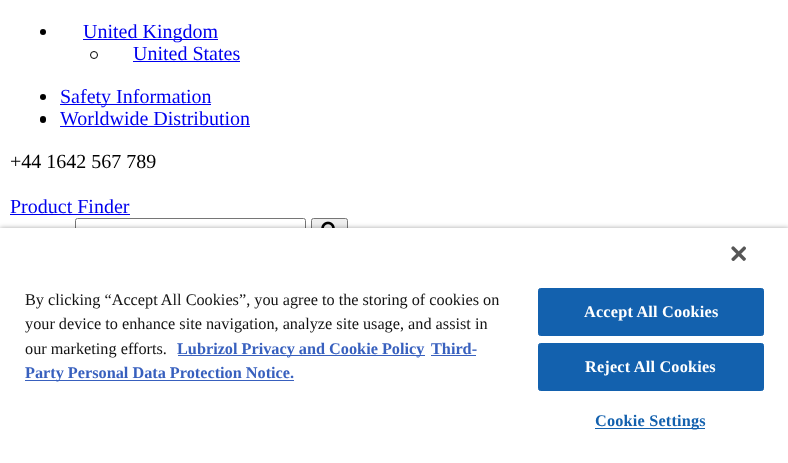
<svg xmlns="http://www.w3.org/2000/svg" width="788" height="463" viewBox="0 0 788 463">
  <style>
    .t1 { font: 20px Liberation Serif; fill: #00e; }
    .t2 { font: 20px Liberation Serif; fill: #000; }
    .t3 { font: 16.25px Liberation Serif; fill: #121212; }
    .t4 { font: bold 16.25px Liberation Serif; fill: #3860be; }
    .t5 { font: bold 16.25px Liberation Serif; letter-spacing: 0.2px; fill: #fff; }
    .t6 { font: bold 16.25px Liberation Serif; letter-spacing: 0.2px; fill: #1361ae; }
  </style>
  <rect width="100%" height="100%" fill="#fff"/>
  <circle cx="43" cy="32" r="3" fill="#000"/>
  <rect x="83" y="39" width="135" height="1" fill="#00e"/>
  <text x="83" y="38" class="t1">United Kingdom</text>
  <circle cx="94" cy="55" r="3.5" fill="none" stroke="#000"/>
  <text x="133" y="60" class="t1">United States</text>
  <rect x="133" y="61" width="107" height="1" fill="#00e"/>
  <circle cx="43" cy="97" r="3" fill="#000"/>
  <rect x="60" y="104" width="151" height="1" fill="#00e"/>
  <text x="60" y="103" class="t1">Safety Information</text>
  <rect x="40" y="116" width="6" height="7" rx="3" fill="#000"/>
  <text x="60" y="125" class="t1">Worldwide Distribution</text>
  <rect x="60" y="126" width="190" height="1" fill="#00e"/>
  <text x="10" y="168" class="t2">+44 1642 567 789</text>
  <text x="10" y="213" class="t1">Product Finder</text>
  <rect x="10" y="214" width="120" height="1" fill="#00e"/>
  <rect x="75.5" y="218.5" width="230" height="25" rx="2" fill="none" stroke="#767676"/>
  <rect x="311.5" y="218.5" width="36" height="25" rx="2" fill="#efefef" stroke="#767676"/>
  <image x="321" y="221" width="14" height="7" href="images/1.png"/>
  <rect x="0" y="228" width="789" height="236" fill="#00000059" filter="blur(2.5px)"/>
  <rect x="0" y="228" width="788" height="235" fill="#fff"/>
  <image x="731" y="246" width="15" height="15" href="images/2.png"/>
  <text x="25" y="305" class="t3">By clicking “Accept All Cookies”, you agree to the storing of cookies on</text>
  <text x="25" y="329" class="t3">your device to enhance site navigation, analyze site usage, and assist in</text>
  <text x="25" y="354" class="t3">our marketing efforts.</text>
  <rect x="178" y="355" width="247" height="1" fill="#3860be"/>
  <text x="177" y="354" class="t4">Lubrizol Privacy and Cookie Policy</text>
  <text x="431" y="354" class="t4">Third-</text>
  <rect x="431" y="355" width="45" height="1" fill="#3860be"/>
  <rect x="25" y="380" width="269" height="1" fill="#3860be"/>
  <text x="25" y="378" class="t4">Party Personal Data Protection Notice.</text>
  <rect x="538.5" y="288.5" width="225" height="47" rx="2" fill="#1361ae" stroke="#1361ae"/>
  <text x="584" y="317" class="t5">Accept All Cookies</text>
  <rect x="538.5" y="343.5" width="225" height="47" rx="2" fill="#1361ae" stroke="#1361ae"/>
  <text x="585" y="372" class="t5">Reject All Cookies</text>
  <rect x="595" y="428" width="110" height="1" fill="#1361ae"/>
  <text x="595" y="426" class="t6">Cookie Settings</text>
</svg>
